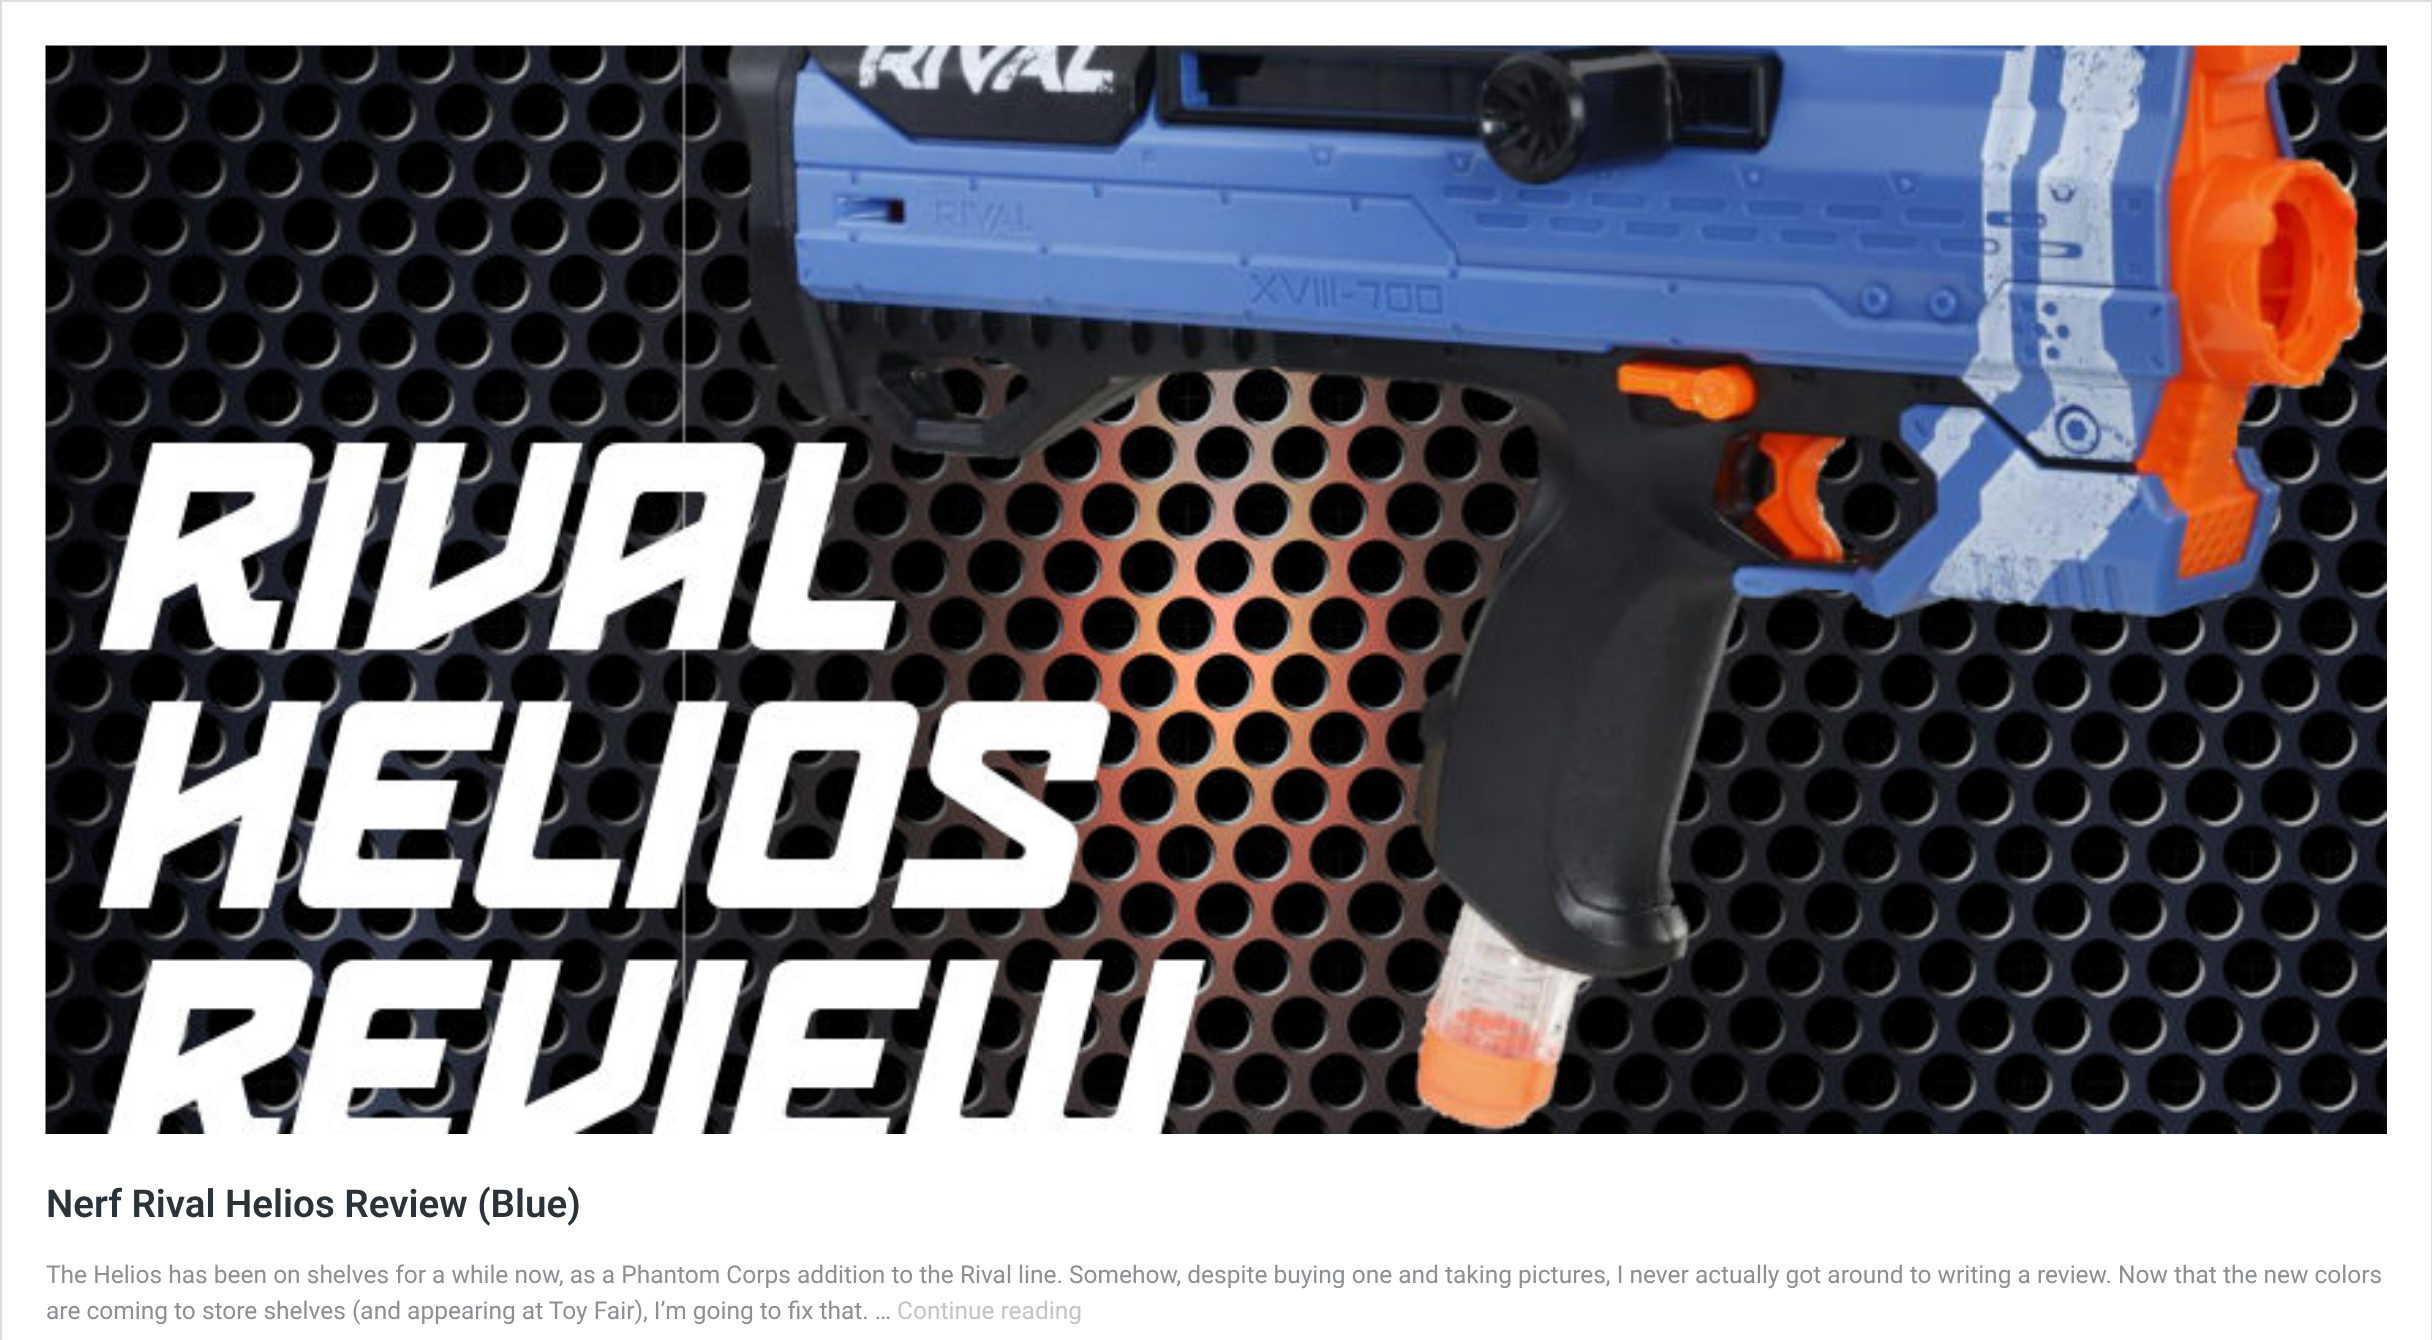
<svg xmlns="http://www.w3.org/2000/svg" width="2432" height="1340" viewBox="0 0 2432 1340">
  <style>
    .t1 { font: 600 38.5px Roboto; fill: #2c3338; }
    .t2 { font: 24.5px Roboto; fill: #8c8f94; }
    .t3 { font: 24.5px Roboto; fill: #c3c4c7; }
  </style>
  <rect width="100%" height="100%" fill="#fff"/>
  <rect x="1" y="1" width="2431" height="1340" fill="none" stroke="#dcdcde" stroke-width="2"/>
  <image x="45" y="45" width="2342" height="1089" href="images/1.png"/>
  <text x="46" y="1217" class="t1">Nerf Rival Helios Review (Blue)</text>
  <text x="46" y="1283" class="t2">The Helios has been on shelves for a while now, as a Phantom Corps addition to the Rival line. Somehow, despite buying one and taking pictures, I never actually got around to writing a review. Now that the new colors</text>
  <text x="46" y="1319" class="t2">are coming to store shelves (and appearing at Toy Fair), I’m going to fix that. …</text>
  <text x="897" y="1319" class="t3">Continue reading</text>
</svg>
